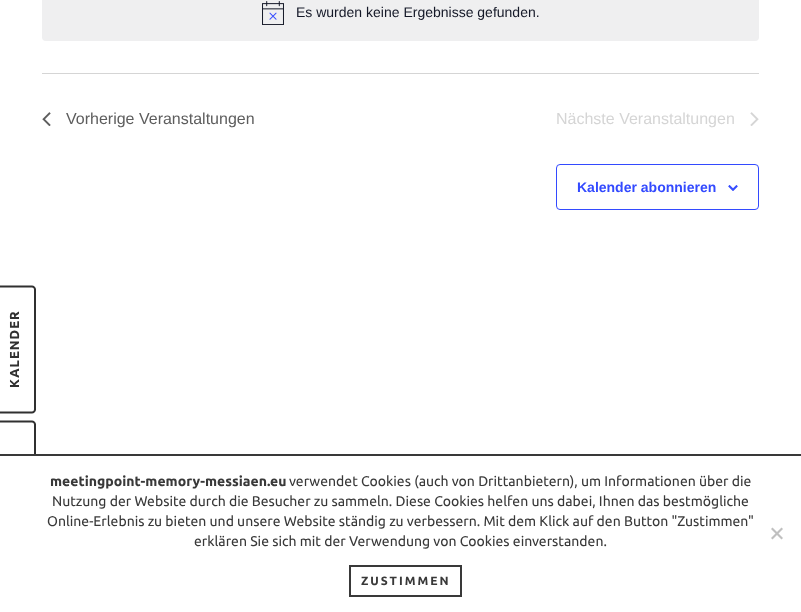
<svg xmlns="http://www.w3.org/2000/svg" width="801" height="612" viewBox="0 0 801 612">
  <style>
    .t1 { font: 14px Liberation Sans; fill: #141827; }
    .t2 { font: 16px Liberation Sans; fill: #5d5d5d; }
    .t3 { font: 16px Liberation Sans; fill: #d5d5d5; }
    .t4 { font: bold 14px Liberation Sans; fill: #334aff; }
    .t5 { font: bold 13px Ubuntu; letter-spacing: 1px; fill: #303030; }
    .t6 { font: bold 14px Ubuntu; fill: #393939; }
    .t7 { font: 14px Ubuntu; fill: #393939; }
    .t8 { font: bold 12px Ubuntu; letter-spacing: 2px; fill: #393939; }
  </style>
  <rect width="100%" height="100%" fill="#fff"/>
  <rect x="42" y="-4" width="717" height="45" rx="4" fill="#efeff0"/>
  <image x="262" y="1" width="22" height="24" href="images/1.png"/>
  <text x="296" y="17" class="t1">Es wurden keine Ergebnisse gefunden.</text>
  <rect x="42" y="73" width="717" height="1" fill="#d5d5d5"/>
  <image x="42" y="112" width="9" height="14" href="images/2.png"/>
  <text x="66" y="124" class="t2">Vorherige Veranstaltungen</text>
  <text x="556" y="124" class="t3">Nächste Veranstaltungen</text>
  <image x="750" y="112" width="9" height="14" href="images/3.png"/>
  <rect x="556.5" y="164.5" width="202" height="45" rx="3.5" fill="none" stroke="#334aff"/>
  <text x="577" y="192" class="t4">Kalender abonnieren</text>
  <image x="728" y="185" width="10" height="6" href="images/4.png"/>
  <path d="M-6 409.5V289.5C-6 288-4.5 286.5-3 286.5H32C33.5 286.5 35 288 35 289.5V409.5C35 411 33.5 412.5 32 412.5H-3C-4.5 412.5-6 411-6 409.5Z" fill="none" stroke="#303030" stroke-width="2"/>
  <text x="19" y="388" transform="rotate(-90 19 388)" class="t5">KALENDER</text>
  <path d="M-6 562V424.5C-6 423-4.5 421.5-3 421.5H32C33.5 421.5 35 423 35 424.5V562C35 564 33.5 565 32 565H-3C-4.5 565-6 564-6 562Z" fill="none" stroke="#303030" stroke-width="2"/>
  <rect x="0" y="456" width="36" height="110" fill="#fff"/>
  <rect x="0" y="454" width="801" height="2" fill="#393939"/>
  <text x="50" y="486" class="t6">meetingpoint-memory-messiaen.eu</text>
  <text x="289" y="486" class="t7">verwendet Cookies (auch von Drittanbietern), um Informationen über die</text>
  <text x="52" y="506" class="t7">Nutzung der Website durch die Besucher zu sammeln. Diese Cookies helfen uns dabei, Ihnen das bestmögliche</text>
  <text x="47" y="526" class="t7">Online-Erlebnis zu bieten und unsere Website ständig zu verbessern. Mit dem Klick auf den Button "Zustimmen"</text>
  <text x="194" y="546" class="t7">erklären Sie sich mit der Verwendung von Cookies einverstanden.</text>
  <path d="M781.5 527.5L783 529L772.5 539.5L771 538Z" fill="#c0c0c0"/>
  <path d="M771 529L772.5 527.5L783 538L781.5 539.5Z" fill="#c0c0c0"/>
  <rect x="350" y="566" width="111" height="30" fill="none" stroke="#393939" stroke-width="2"/>
  <text x="361" y="585" class="t8">ZUSTIMMEN</text>
</svg>
